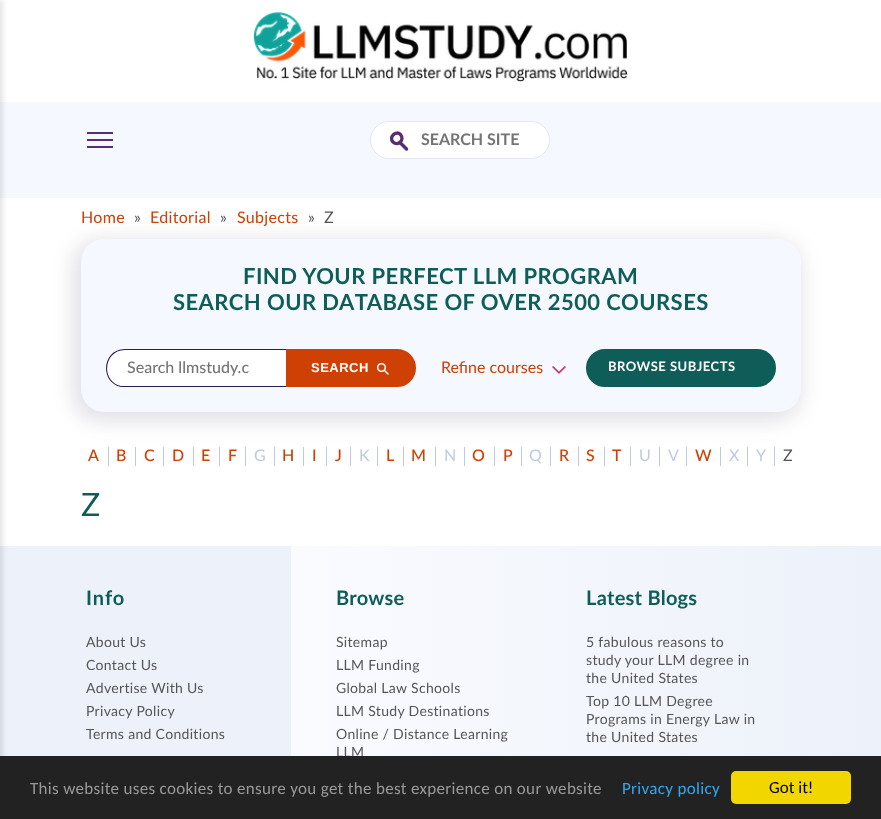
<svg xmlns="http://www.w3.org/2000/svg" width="881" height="819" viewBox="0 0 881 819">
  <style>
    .t1 { font: bold 16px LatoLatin; fill: #757575; }
    .t2 { font: 16px LatoLatin; letter-spacing: 0.32px; fill: #ce4003; }
    .t3 { font: 16px LatoLatin; letter-spacing: 0.32px; fill: #555; }
    .t4 { font: bold 22px LatoLatin; letter-spacing: 0.45px; fill: #0e5d59; }
    .t5 { font: 500 16px LatoLatin; fill: #757575; }
    .t6 { font: bold 13px Liberation Sans; letter-spacing: 0.5px; fill: #fff; }
    .t7 { font: 16px LatoLatin; fill: #ce4003; }
    .t8 { font: bold 13px LatoLatin; letter-spacing: 0.5px; fill: #fff; }
    .t9 { font: 500 16px LatoLatin; letter-spacing: 1px; fill: #ce4003; }
    .t10 { font: 16px LatoLatin; letter-spacing: 0.32px; fill: #bfc9e0; }
    .t11 { font: 32px LatoLatin; letter-spacing: 2px; fill: #0e5d59; }
    .t12 { font: bold 20px LatoLatin; letter-spacing: 1px; fill: #0e5d59; }
    .t13 { font: 14px LatoLatin; letter-spacing: 0.32px; fill: #555; }
    .t14 { font: bold 20px LatoLatin; letter-spacing: 0.25px; fill: #0e5d59; }
    .t15 { font: 17px Carlito; letter-spacing: 0.32px; fill: #999; }
    .t16 { font: 17px Carlito; letter-spacing: 0.32px; fill: #31a8f0; }
    .t17 { font: 17px Carlito; fill: #000; }
  </style>
  <defs>
    <linearGradient id="g1" gradientUnits="userSpaceOnUse" x1="0" y1="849" x2="881" y2="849"><stop offset="0" stop-color="#edf1f9"/><stop offset="0.33" stop-color="#edf1f9"/><stop offset="0.33" stop-color="#f9fbff"/><stop offset="1" stop-color="#edf1f9"/><stop offset="1" stop-color="#f9fbff"/></linearGradient>
  </defs>
  <rect width="100%" height="100%" fill="#fff"/>
  <image x="253" y="12" width="375" height="70" href="images/1.png"/>
  <rect x="0" y="102" width="881" height="96" fill="#f5f8ff"/>
  <rect x="0" y="546" width="881" height="210" fill="url(#g1)"/>
  <rect x="-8" y="0" width="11" height="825" fill="#0000001a" filter="blur(2.5px)"/>
  <rect x="87" y="132" width="26" height="2" fill="#592d71"/>
  <rect x="87" y="139" width="26" height="2" fill="#592d71"/>
  <rect x="87" y="146" width="26" height="2" fill="#592d71"/>
  <rect x="370.5" y="121.5" width="179" height="37" rx="18.5" fill="#fff" stroke="#e2e7f3"/>
  <path d="M404 146.5L400 142.5L406.5 149ZM393 142C388.5 137 396 130 400.5 134.5C405 140 398 146.5 393 142Z" fill="none" stroke="#592d71" stroke-width="3.4" stroke-linecap="round" stroke-linejoin="round"/>
  <text x="421" y="145" class="t1">SEARCH SITE</text>
  <text x="81" y="223" class="t2">Home</text>
  <text x="134" y="223" class="t3">»</text>
  <text x="150" y="223" class="t2">Editorial</text>
  <text x="220" y="223" class="t3">»</text>
  <text x="237" y="223" class="t2">Subjects</text>
  <text x="308" y="223" class="t3">»</text>
  <text x="324" y="223" class="t3">Z</text>
  <rect x="73" y="240" width="728" height="181" rx="27" fill="#0801281f" filter="blur(10px)"/>
  <rect x="81" y="239" width="720" height="173" rx="23" fill="#f5f8ff"/>
  <text x="243" y="284" class="t4">FIND YOUR PERFECT LLM PROGRAM</text>
  <text x="173" y="310" class="t4">SEARCH OUR DATABASE OF OVER 2500 COURSES</text>
  <path d="M125 349H286V387H125C114.5 387 106 378.5 106 368C106 357.5 114.5 349 125 349Z" fill="#fff"/>
  <path d="M125 349H286V387H121C99 382 102 349 125 349ZM125 350H286V386H121C100 381 104 350 125 350Z" fill="#261d53" fill-rule="evenodd"/>
  <text x="127" y="373" class="t5">Search llmstudy.c</text>
  <path d="M287 350H397C407 350 415 358 415 368C415 378 407 386 397 386H287Z" fill="#ce4003" stroke="#ce4003" stroke-width="2"/>
  <text x="311" y="372" class="t6">SEARCH</text>
  <image x="376" y="362" width="13" height="13" href="images/2.png"/>
  <text x="441" y="373" class="t7">Refine courses</text>
  <image x="552" y="366" width="14" height="8" href="images/3.png"/>
  <rect x="587" y="350" width="188" height="36" rx="18" fill="#0e5d59" stroke="#0e5d59" stroke-width="2"/>
  <text x="608" y="371" class="t8">BROWSE SUBJECTS</text>
  <rect x="108" y="447" width="1" height="19" fill="#bfc9e0"/>
  <text x="88" y="461" class="t9">A</text>
  <rect x="135" y="447" width="1" height="19" fill="#bfc9e0"/>
  <text x="116" y="461" class="t9">B</text>
  <rect x="163" y="447" width="1" height="19" fill="#bfc9e0"/>
  <text x="144" y="461" class="t9">C</text>
  <rect x="193" y="447" width="1" height="19" fill="#bfc9e0"/>
  <text x="172" y="461" class="t9">D</text>
  <rect x="219" y="447" width="1" height="19" fill="#bfc9e0"/>
  <text x="201" y="461" class="t9">E</text>
  <rect x="245" y="447" width="1" height="19" fill="#bfc9e0"/>
  <text x="228" y="461" class="t9">F</text>
  <rect x="274" y="447" width="1" height="19" fill="#bfc9e0"/>
  <text x="254" y="461" class="t10">G</text>
  <rect x="303" y="447" width="1" height="19" fill="#bfc9e0"/>
  <text x="282" y="461" class="t9">H</text>
  <rect x="326" y="447" width="1" height="19" fill="#bfc9e0"/>
  <text x="312" y="461" class="t9">I</text>
  <rect x="350" y="447" width="1" height="19" fill="#bfc9e0"/>
  <text x="335" y="461" class="t9">J</text>
  <rect x="377" y="447" width="1" height="19" fill="#bfc9e0"/>
  <text x="359" y="461" class="t10">K</text>
  <rect x="403" y="447" width="1" height="19" fill="#bfc9e0"/>
  <text x="386" y="461" class="t9">L</text>
  <rect x="435" y="447" width="1" height="19" fill="#bfc9e0"/>
  <text x="411" y="461" class="t9">M</text>
  <rect x="464" y="447" width="1" height="19" fill="#bfc9e0"/>
  <text x="444" y="461" class="t10">N</text>
  <rect x="494" y="447" width="1" height="19" fill="#bfc9e0"/>
  <text x="472" y="461" class="t9">O</text>
  <rect x="521" y="447" width="1" height="19" fill="#bfc9e0"/>
  <text x="503" y="461" class="t9">P</text>
  <rect x="550" y="447" width="1" height="19" fill="#bfc9e0"/>
  <text x="529" y="461" class="t10">Q</text>
  <rect x="578" y="447" width="1" height="19" fill="#bfc9e0"/>
  <text x="559" y="461" class="t9">R</text>
  <rect x="604" y="447" width="1" height="19" fill="#bfc9e0"/>
  <text x="586" y="461" class="t9">S</text>
  <rect x="630" y="447" width="1" height="19" fill="#bfc9e0"/>
  <text x="612" y="461" class="t9">T</text>
  <rect x="659" y="447" width="1" height="19" fill="#bfc9e0"/>
  <text x="639" y="461" class="t10">U</text>
  <rect x="686" y="447" width="1" height="19" fill="#bfc9e0"/>
  <text x="668" y="461" class="t10">V</text>
  <rect x="720" y="447" width="1" height="19" fill="#bfc9e0"/>
  <text x="695" y="461" class="t9">W</text>
  <rect x="747" y="447" width="1" height="19" fill="#bfc9e0"/>
  <text x="729" y="461" class="t10">X</text>
  <rect x="774" y="447" width="1" height="19" fill="#bfc9e0"/>
  <text x="756" y="461" class="t10">Y</text>
  <text x="783" y="461" class="t3">Z</text>
  <text x="81" y="516" class="t11">Z</text>
  <text x="86" y="605" class="t12">Info</text>
  <text x="86" y="647" class="t13">About Us</text>
  <text x="86" y="670" class="t13">Contact Us</text>
  <text x="86" y="693" class="t13">Advertise With Us</text>
  <text x="86" y="716" class="t13">Privacy Policy</text>
  <text x="86" y="739" class="t13">Terms and Conditions</text>
  <text x="336" y="605" class="t14">Browse</text>
  <text x="336" y="647" class="t13">Sitemap</text>
  <text x="336" y="670" class="t13">LLM Funding</text>
  <text x="336" y="693" class="t13">Global Law Schools</text>
  <text x="336" y="716" class="t13">LLM Study Destinations</text>
  <text x="336" y="739" class="t13">Online / Distance Learning</text>
  <text x="336" y="757" class="t13">LLM</text>
  <text x="586" y="605" class="t14">Latest Blogs</text>
  <text x="586" y="647" class="t13">5 fabulous reasons to</text>
  <text x="586" y="665" class="t13">study your LLM degree in</text>
  <text x="586" y="683" class="t13">the United States</text>
  <text x="586" y="706" class="t13">Top 10 LLM Degree</text>
  <text x="586" y="724" class="t13">Programs in Energy Law in</text>
  <text x="586" y="742" class="t13">the United States</text>
  <rect x="0" y="756" width="881" height="63" fill="#222"/>
  <text x="30" y="794" class="t15">This website uses cookies to ensure you get the best experience on our website</text>
  <text x="622" y="794" class="t16">Privacy policy</text>
  <rect x="731" y="771" width="120" height="33" rx="5" fill="#f1d600"/>
  <text x="769" y="793" class="t17">Got it!</text>
</svg>
